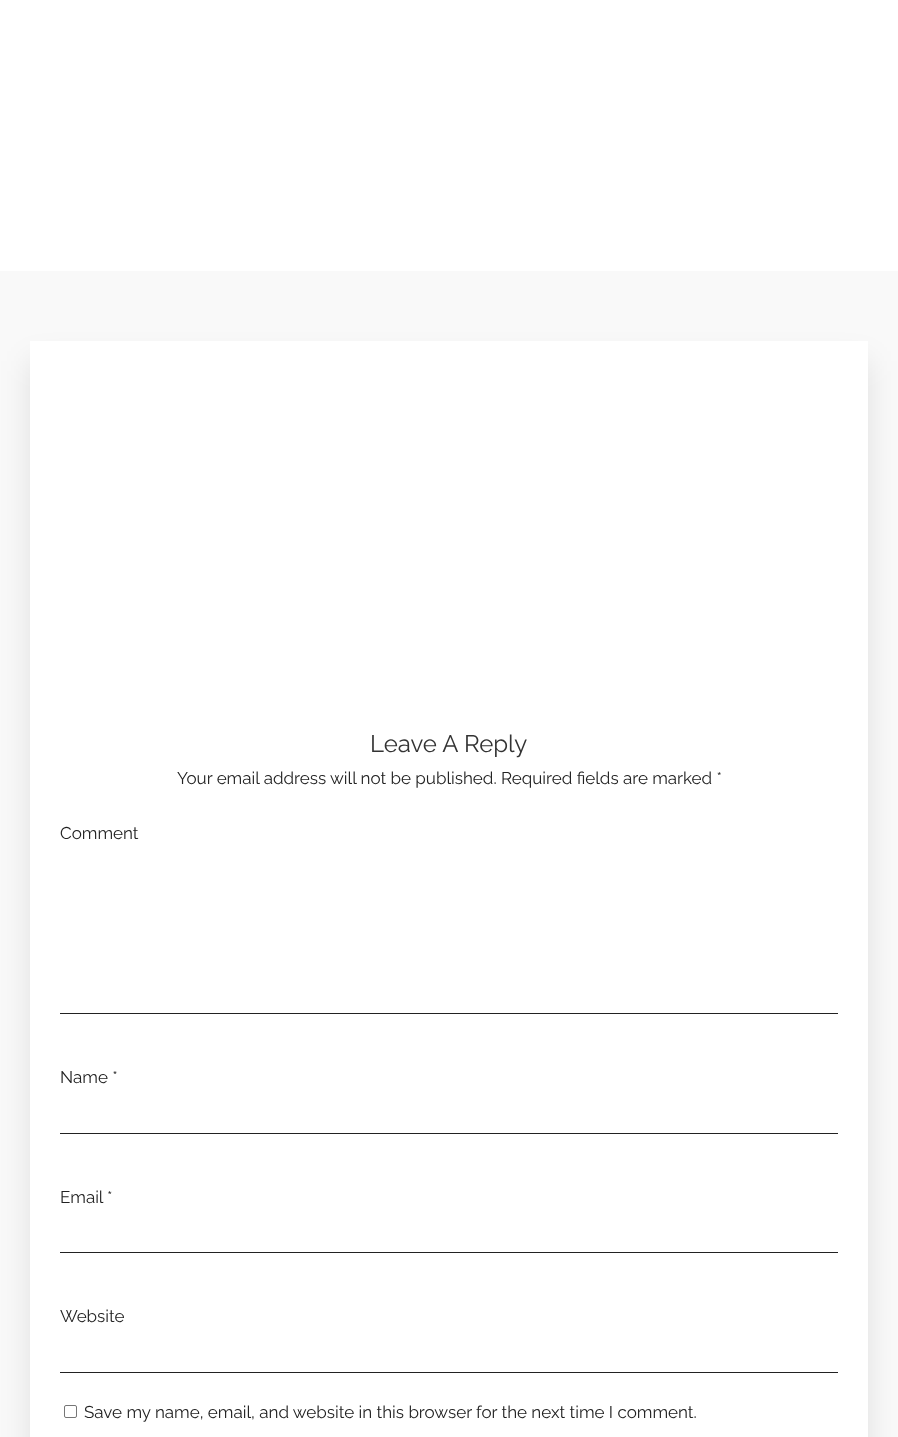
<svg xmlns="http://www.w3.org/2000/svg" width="898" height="1437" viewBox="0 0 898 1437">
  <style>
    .t1 { font: 100 24px Raleway; fill: #333; }
    .t2 { font: 100 17px Raleway; fill: #222; }
  </style>
  <rect width="100%" height="100%" fill="#f9f9f9"/>
  <rect x="0" y="0" width="898" height="271" fill="#fff"/>
  <rect x="30" y="361" width="838" height="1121" fill="#0101011a" filter="blur(15px)"/>
  <rect x="30" y="341" width="838" height="1096" fill="#fff"/>
  <text x="370" y="752" class="t1">Leave A Reply</text>
  <text x="177" y="784" class="t2">Your email address will not be published. Required fields are marked *</text>
  <text x="60" y="839" class="t2">Comment</text>
  <rect x="60" y="1013" width="778" height="1" fill="#222"/>
  <text x="60" y="1083" class="t2">Name *</text>
  <rect x="60" y="1133" width="778" height="1" fill="#222"/>
  <text x="60" y="1203" class="t2">Email</text>
  <text x="107" y="1203" class="t2">*</text>
  <rect x="60" y="1252" width="778" height="1" fill="#222"/>
  <text x="60" y="1322" class="t2">Website</text>
  <rect x="60" y="1372" width="778" height="1" fill="#222"/>
  <rect x="64.5" y="1405.5" width="12" height="12" rx="1.5" fill="none" stroke="#767676"/>
  <text x="84" y="1418" class="t2">Save my name, email, and website in this browser for the next time I comment.</text>
</svg>
